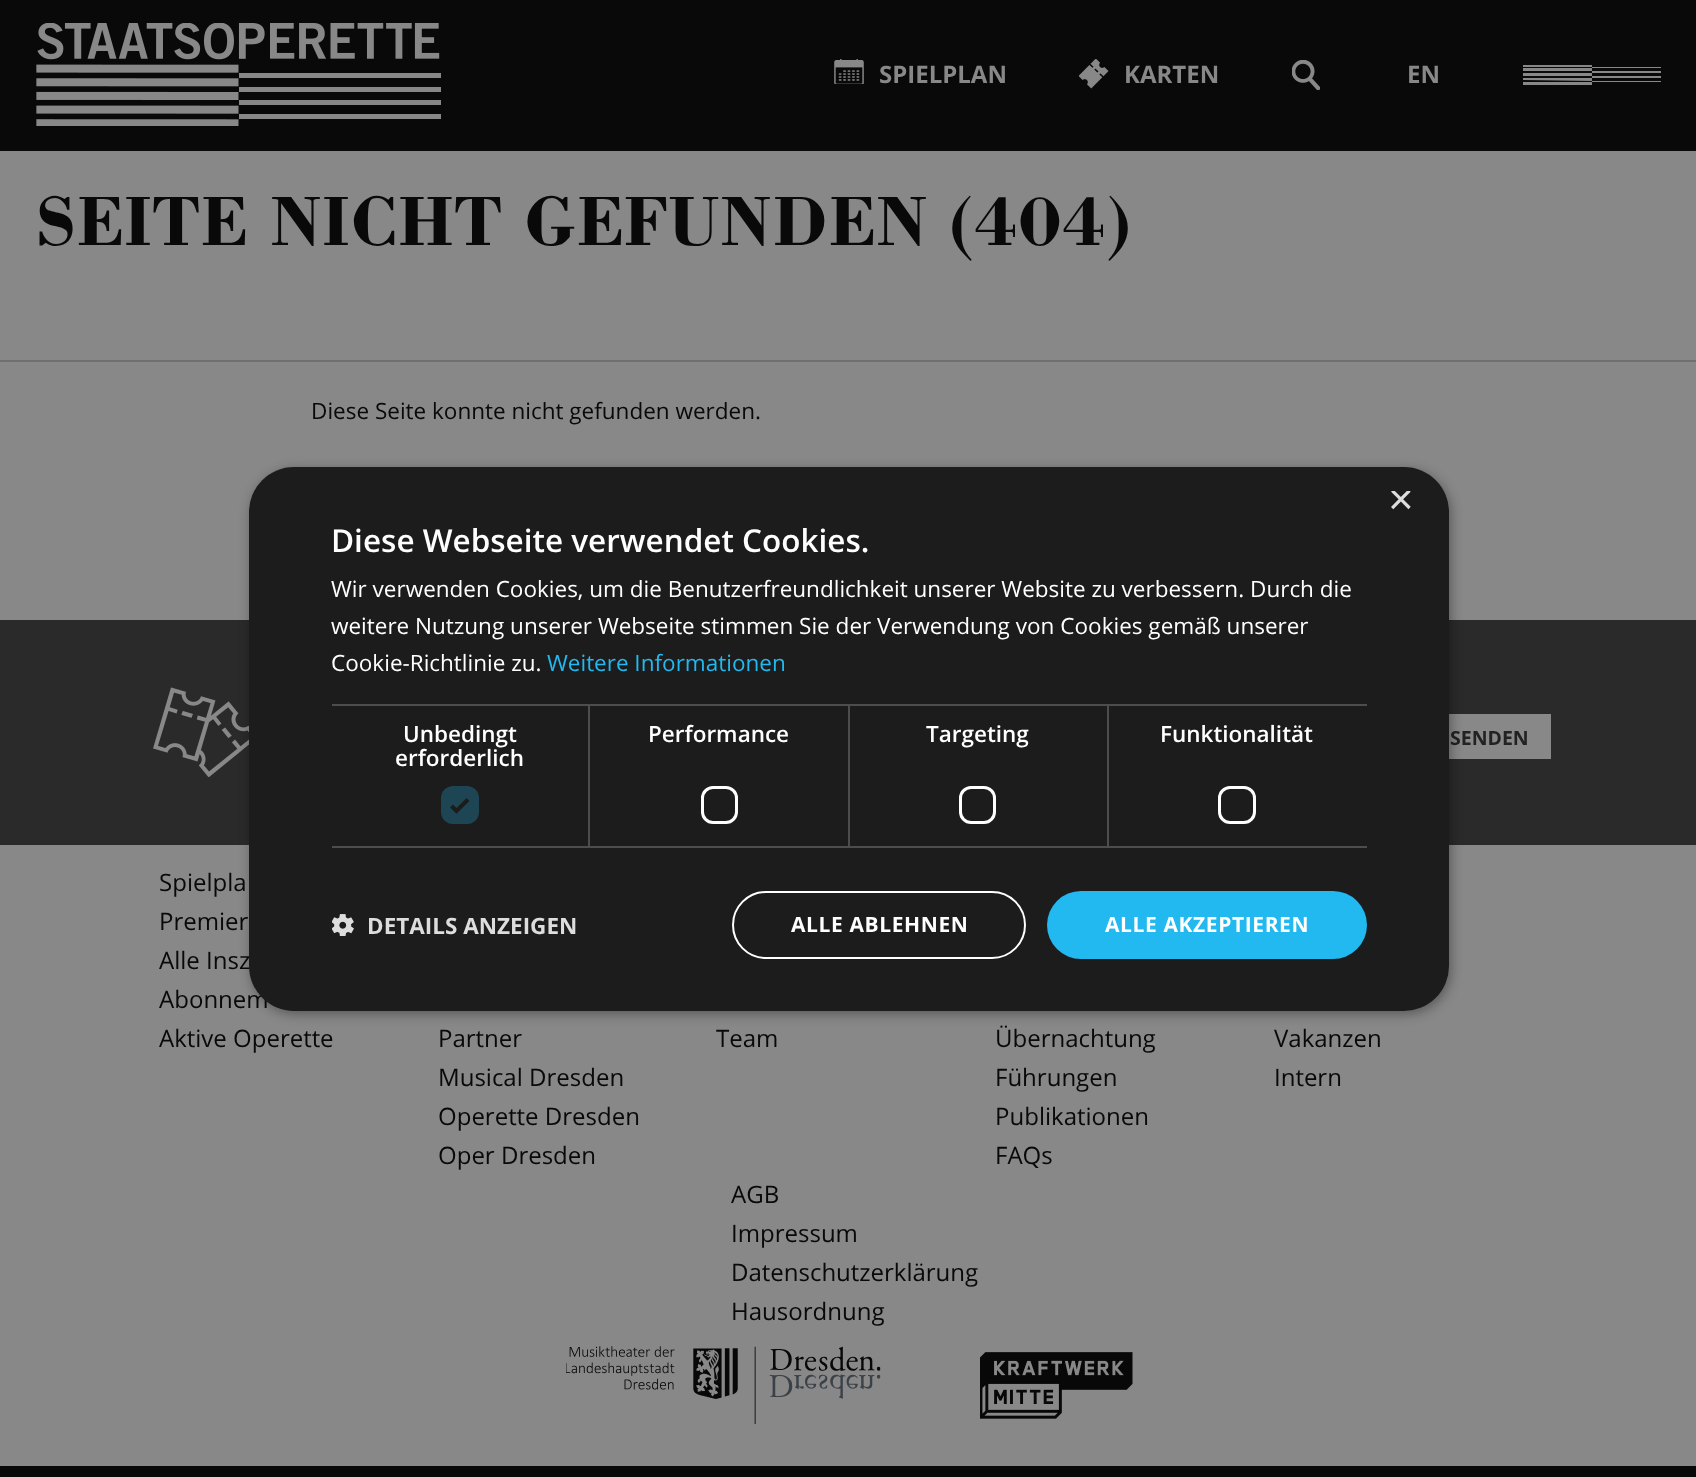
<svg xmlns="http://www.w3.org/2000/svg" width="1696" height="1477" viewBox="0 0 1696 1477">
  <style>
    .t1 { font: bold 24px Open Sans; fill: #888; }
    .t2 { font: bold 72px Bodoni; fill: #090909; }
    .t3 { font: 22.5px Open Sans; fill: #090909; }
    .t4 { font: bold 19.5px Open Sans; fill: #222; }
    .t5 { font: 24px Open Sans; fill: #090909; }
    .t6 { font: 44px Liberation Sans; fill: #ddd; }
    .t7 { font: 600 31.5px Open Sans; fill: #fff; }
    .t8 { font: 22.5px Open Sans; fill: #fff; }
    .t9 { font: 22.5px Open Sans; fill: #22b8f0; }
    .t10 { font: 600 22.5px Open Sans; fill: #fff; }
    .t11 { font: bold 22.5px Open Sans; fill: #ddd; }
    .t12 { font: bold 21px Open Sans; letter-spacing: 0.6px; fill: #fff; }
  </style>
  <defs>
    <clipPath id="clip1"><rect x="1523" y="65" width="138" height="21"/></clipPath>
    <clipPath id="clip2"><rect x="1389" y="491" width="23" height="22"/></clipPath>
  </defs>
  <rect width="100%" height="100%" fill="#888"/>
  <rect x="0" y="0" width="1696" height="151" fill="#090909"/>
  <image x="36" y="23" width="405" height="103" href="images/1.png"/>
  <image x="834" y="59" width="30" height="25" href="images/2.png"/>
  <text x="879" y="83" class="t1">SPIELPLAN</text>
  <image x="1079" y="59" width="30" height="30" href="images/3.png"/>
  <text x="1124" y="83" class="t1">KARTEN</text>
  <image x="1292" y="60" width="28" height="30" href="images/4.png"/>
  <text x="1407" y="83" class="t1">EN</text>
  <g clip-path="url(#clip1)">
    <path d="M1592 85H1522V82H1592ZM1592 81L1522 80V78H1592ZM1592 76H1522V73H1592ZM1592 71H1522V68H1592ZM1592 67H1522V64H1592Z" fill="#888"/>
  </g>
  <rect x="1592" y="67" width="69" height="1" fill="#888"/>
  <rect x="1592" y="71" width="69" height="2" fill="#888"/>
  <rect x="1592" y="76" width="69" height="2" fill="#888"/>
  <rect x="1592" y="81" width="69" height="1" fill="#888"/>
  <rect x="0" y="360" width="1696" height="2" fill="#6f6f6f"/>
  <text x="36" y="245" class="t2">SEITE NICHT GEFUNDEN (404)</text>
  <text x="311" y="419" class="t3">Diese Seite konnte nicht gefunden werden.</text>
  <rect x="0" y="620" width="1696" height="225" fill="#2a2a2a"/>
  <image x="153" y="687" width="96" height="90" href="images/5.png"/>
  <rect x="1449" y="714" width="102" height="45" fill="#888"/>
  <text x="1450" y="745" class="t4">SENDEN</text>
  <text x="159" y="891" class="t5">Spielpla</text>
  <text x="159" y="930" class="t5">Premier</text>
  <text x="159" y="969" class="t5">Alle Insz</text>
  <text x="159" y="1008" class="t5">Abonnem</text>
  <text x="159" y="1047" class="t5">Aktive Operette</text>
  <text x="438" y="1047" class="t5">Partner</text>
  <text x="438" y="1086" class="t5">Musical Dresden</text>
  <text x="438" y="1125" class="t5">Operette Dresden</text>
  <text x="438" y="1164" class="t5">Oper Dresden</text>
  <text x="716" y="1047" class="t5">Team</text>
  <text x="995" y="1047" class="t5">Übernachtung</text>
  <text x="995" y="1086" class="t5">Führungen</text>
  <text x="995" y="1125" class="t5">Publikationen</text>
  <text x="995" y="1164" class="t5">FAQs</text>
  <text x="1274" y="1047" class="t5">Vakanzen</text>
  <text x="1274" y="1086" class="t5">Intern</text>
  <text x="731" y="1203" class="t5">AGB</text>
  <text x="731" y="1242" class="t5">Impressum</text>
  <text x="731" y="1281" class="t5">Datenschutzerklärung</text>
  <text x="731" y="1320" class="t5">Hausordnung</text>
  <image x="566" y="1346" width="315" height="78" href="images/6.png"/>
  <image x="980" y="1352" width="153" height="67" href="images/7.png"/>
  <rect x="0" y="1466" width="1696" height="11" fill="#090909"/>
  <rect x="251" y="470" width="1200" height="544" rx="45" fill="#00000059" filter="blur(6px)"/>
  <rect x="249" y="467" width="1200" height="544" rx="45" fill="#1c1c1c"/>
  <g clip-path="url(#clip2)">
    <text x="1388" y="514" class="t6">×</text>
  </g>
  <text x="331" y="552" class="t7">Diese Webseite verwendet Cookies.</text>
  <text x="331" y="597" class="t8">Wir verwenden Cookies, um die Benutzerfreundlichkeit unserer Website zu verbessern. Durch die</text>
  <text x="331" y="634" class="t8">weitere Nutzung unserer Webseite stimmen Sie der Verwendung von Cookies gemäß unserer</text>
  <text x="331" y="671" class="t8">Cookie-Richtlinie zu.</text>
  <text x="547" y="671" class="t9">Weitere Informationen</text>
  <rect x="332" y="704" width="517" height="2" fill="#4d4d4d"/>
  <rect x="588" y="704" width="2" height="144" fill="#4d4d4d"/>
  <rect x="332" y="846" width="258" height="2" fill="#4d4d4d"/>
  <text x="403" y="742" class="t10">Unbedingt</text>
  <text x="395" y="766" class="t10">erforderlich</text>
  <rect x="441" y="786" width="38" height="38" rx="12" fill="#1e4553"/>
  <path d="M451.5 806L456.5 811L468 799.5" fill="none" stroke="#1c1c1c" stroke-width="3.9"/>
  <rect x="848" y="704" width="2" height="144" fill="#4d4d4d"/>
  <rect x="590" y="846" width="259" height="2" fill="#4d4d4d"/>
  <text x="648" y="742" class="t10">Performance</text>
  <rect x="702.5" y="787.5" width="34" height="35" rx="10.5" fill="none" stroke="#fff" stroke-width="3"/>
  <rect x="849" y="704" width="518" height="2" fill="#4d4d4d"/>
  <rect x="1107" y="704" width="2" height="144" fill="#4d4d4d"/>
  <rect x="849" y="846" width="518" height="2" fill="#4d4d4d"/>
  <text x="926" y="742" class="t10">Targeting</text>
  <rect x="960.5" y="787.5" width="34" height="35" rx="10.5" fill="none" stroke="#fff" stroke-width="3"/>
  <text x="1160" y="742" class="t10">Funktionalität</text>
  <rect x="1219.5" y="787.5" width="35" height="35" rx="10.5" fill="none" stroke="#fff" stroke-width="3"/>
  <image x="332" y="914" width="22" height="22" href="images/8.png"/>
  <text x="367" y="934" class="t11">DETAILS ANZEIGEN</text>
  <rect x="733" y="892" width="292" height="66" rx="33" fill="none" stroke="#fff" stroke-width="2"/>
  <text x="791" y="932" class="t12">ALLE ABLEHNEN</text>
  <rect x="1047" y="891" width="320" height="68" rx="34" fill="#22b8f0"/>
  <text x="1105" y="932" class="t12">ALLE AKZEPTIEREN</text>
</svg>
